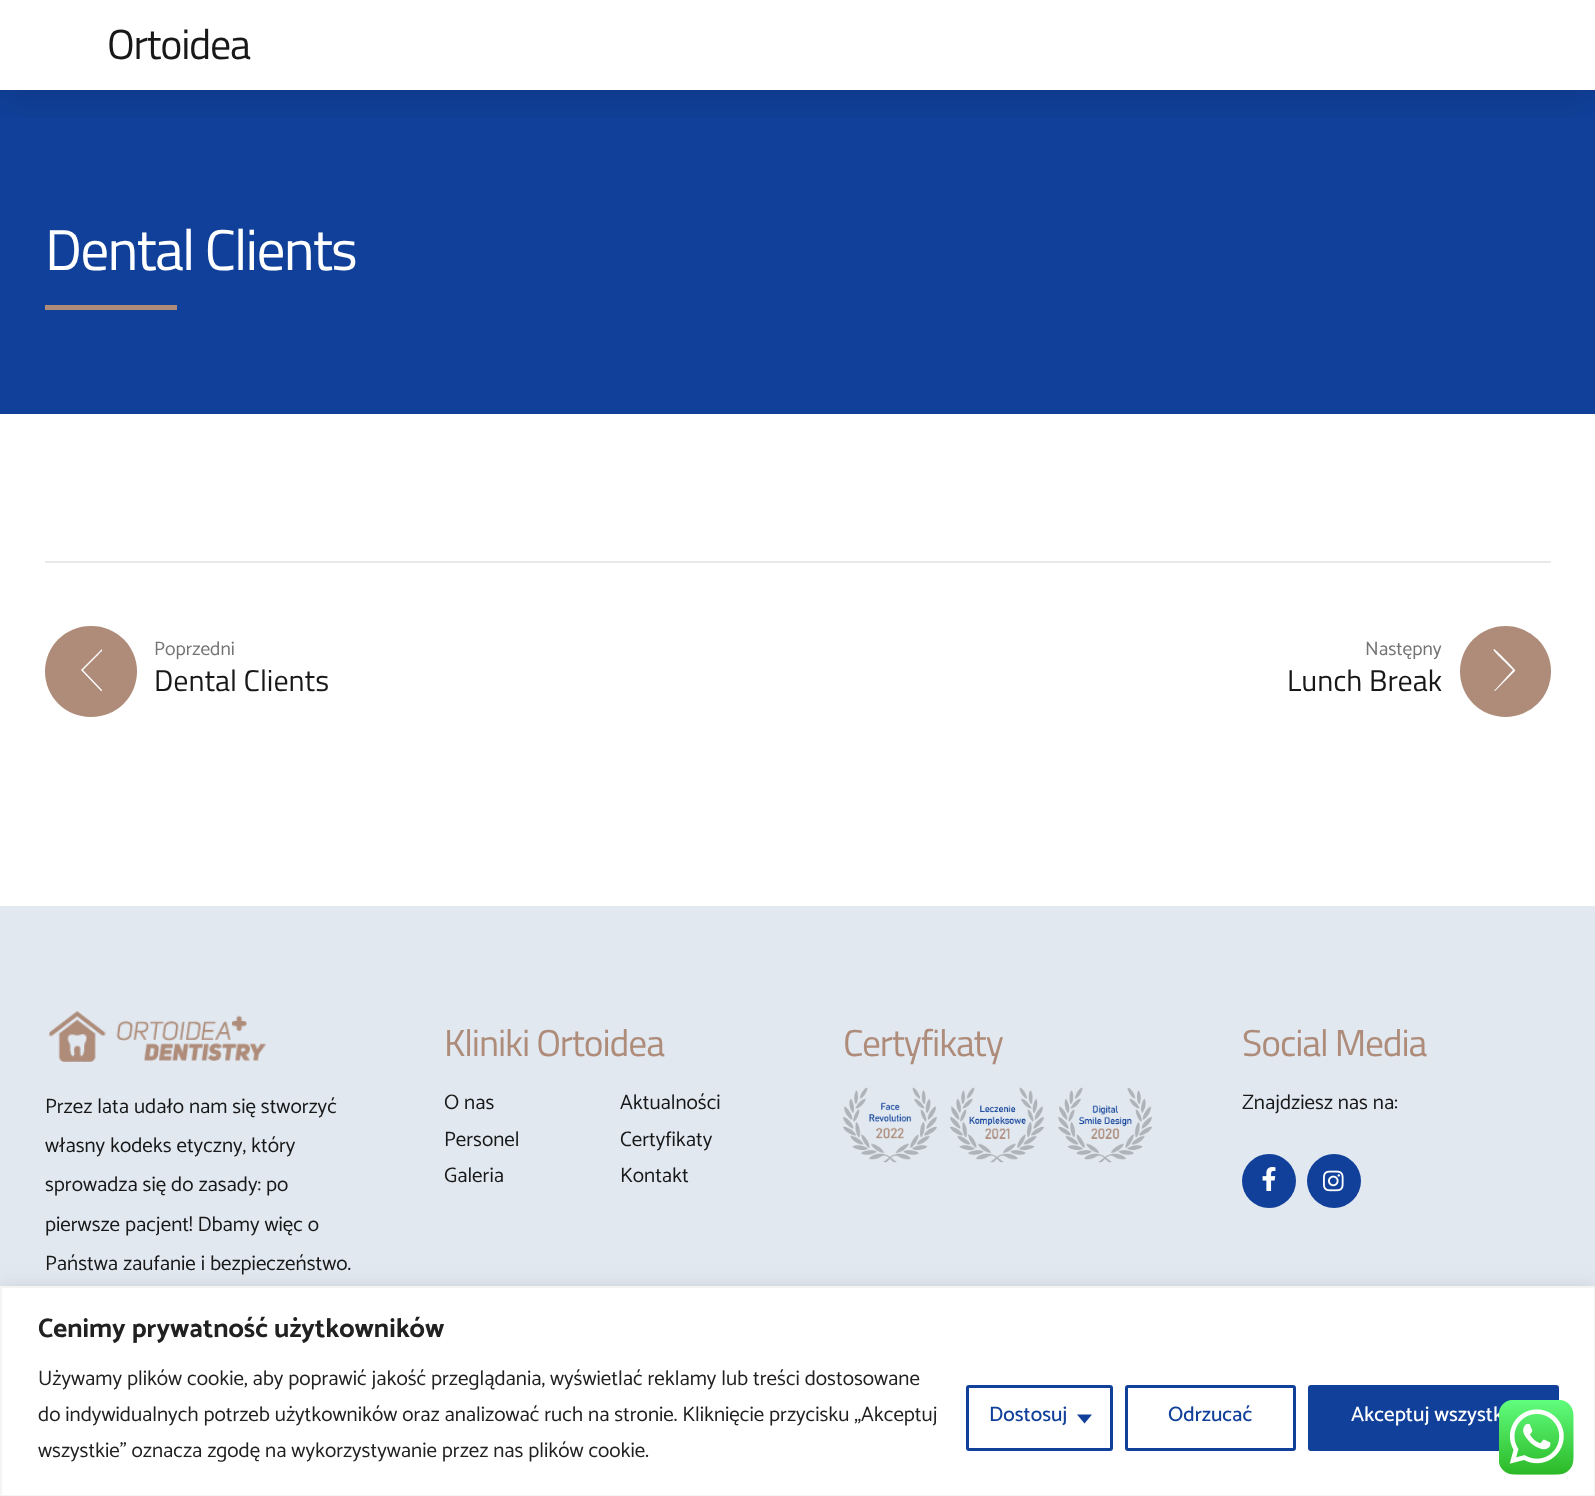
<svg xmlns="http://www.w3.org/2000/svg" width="1595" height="1496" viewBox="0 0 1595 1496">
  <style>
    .t1 { font: 42px Titillium Web; letter-spacing: -1.25px; fill: #181818; }
    .t2 { font: 57.5px Titillium Web; letter-spacing: -1.75px; fill: #fff; }
    .t3 { font: 19.5px Catamaran; fill: #747474; }
    .t4 { font: 30px Titillium Web; fill: #181818; }
    .t5 { font: 37.5px Titillium Web; letter-spacing: -1.1px; fill: #ae8c79; }
    .t6 { font: 21px Catamaran; fill: #181818; }
    .t7 { font: bold 27px Catamaran; fill: #212121; }
    .t8 { font: 21px Catamaran; fill: #212121; }
    .t9 { font: 500 21px Catamaran; fill: #104099; }
    .t10 { font: 500 21px Catamaran; fill: #fff; }
  </style>
  <defs>
    <clipPath id="clip1"><rect x="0" y="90" width="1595" height="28"/></clipPath>
  </defs>
  <rect width="100%" height="100%" fill="#fff"/>
  <rect x="0" y="90" width="1595" height="324" fill="#104099"/>
  <g clip-path="url(#clip1)">
    <rect x="0" y="3" width="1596" height="90" fill="#00000026" filter="blur(22.5px)"/>
  </g>
  <text x="107" y="59" class="t1">Ortoidea</text>
  <text x="45" y="270" class="t2">Dental Clients</text>
  <rect x="45" y="305" width="132" height="5" fill="#ae8c79"/>
  <rect x="45" y="561" width="1506" height="2" fill="#e9e9e9"/>
  <rect x="45" y="626" width="92" height="91" rx="45.5" fill="#ae8c79"/>
  <path d="M102 690L83 670L99 654C100 652 103 651 102 650V649L81 670L101 691C102 691 103 690 102 690Z" fill="#fff"/>
  <text x="154" y="655" class="t3">Poprzedni</text>
  <text x="154" y="691" class="t4">Dental Clients</text>
  <text x="1365" y="655" class="t3">Następny</text>
  <text x="1287" y="691" class="t4">Lunch Break</text>
  <circle cx="1505.5" cy="671.5" r="45.5" fill="#ae8c79"/>
  <path d="M1515 670C1513 667 1495 649 1494 649C1492 650 1496 653 1513 670L1494 691H1495L1515 671Z" fill="#fff"/>
  <rect x="0" y="906" width="1595" height="380" fill="#e1e8f0"/>
  <text x="444" y="1056" class="t5">Kliniki Ortoidea</text>
  <text x="444" y="1109" class="t6">O nas</text>
  <text x="620" y="1109" class="t6">Aktualności</text>
  <text x="444" y="1146" class="t6">Personel</text>
  <text x="620" y="1146" class="t6">Certyfikaty</text>
  <text x="444" y="1182" class="t6">Galeria</text>
  <text x="620" y="1182" class="t6">Kontakt</text>
  <text x="843" y="1056" class="t5">Certyfikaty</text>
  <image x="843" y="1087" width="309" height="76" href="images/1.png"/>
  <text x="1242" y="1056" class="t5">Social Media</text>
  <text x="1242" y="1109" class="t6">Znajdziesz nas na:</text>
  <circle cx="1269" cy="1181" r="27" fill="#104099"/>
  <image x="1262" y="1167" width="14" height="24" href="images/2.png"/>
  <circle cx="1334" cy="1181" r="27" fill="#104099"/>
  <image x="1323" y="1170" width="21" height="22" href="images/3.png"/>
  <image x="48" y="1011" width="218" height="51" href="images/4.png"/>
  <text x="45" y="1113" class="t6">Przez lata udało nam się stworzyć</text>
  <text x="45" y="1152" class="t6">własny kodeks etyczny, który</text>
  <text x="45" y="1191" class="t6">sprowadza się do zasady: po</text>
  <text x="45" y="1231" class="t6">pierwsze pacjent! Dbamy więc o</text>
  <text x="45" y="1270" class="t6">Państwa zaufanie i bezpieczeństwo.</text>
  <rect x="0" y="1284" width="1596" height="212" fill="#acabab4d" filter="blur(7.5px)"/>
  <rect x="1" y="1287" width="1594" height="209" fill="#fff" stroke="#f4f4f4" stroke-width="2"/>
  <text x="38" y="1337" class="t7">Cenimy prywatność użytkowników</text>
  <text x="38" y="1385" class="t8">Używamy plików cookie, aby poprawić jakość przeglądania, wyświetlać reklamy lub treści dostosowane</text>
  <text x="38" y="1421" class="t8">do indywidualnych potrzeb użytkowników oraz analizować ruch na stronie. Kliknięcie przycisku „Akceptuj</text>
  <text x="38" y="1457" class="t8">wszystkie” oznacza zgodę na wykorzystywanie przez nas plików cookie.</text>
  <rect x="967.5" y="1386.5" width="144" height="63" rx="1.5" fill="none" stroke="#104099" stroke-width="3"/>
  <text x="989" y="1421" class="t9">Dostosuj</text>
  <path d="M1077 1414.5H1092L1084.5 1423.5Z" fill="#104099"/>
  <rect x="1126.5" y="1386.5" width="168" height="63" rx="1.5" fill="none" stroke="#104099" stroke-width="3"/>
  <text x="1168" y="1421" class="t9">Odrzucać</text>
  <rect x="1309.5" y="1386.5" width="248" height="63" rx="1.5" fill="#104099" stroke="#104099" stroke-width="3"/>
  <text x="1351" y="1421" class="t10">Akceptuj wszystk</text>
  <image x="1499" y="1400" width="75" height="75" href="images/5.png"/>
</svg>
